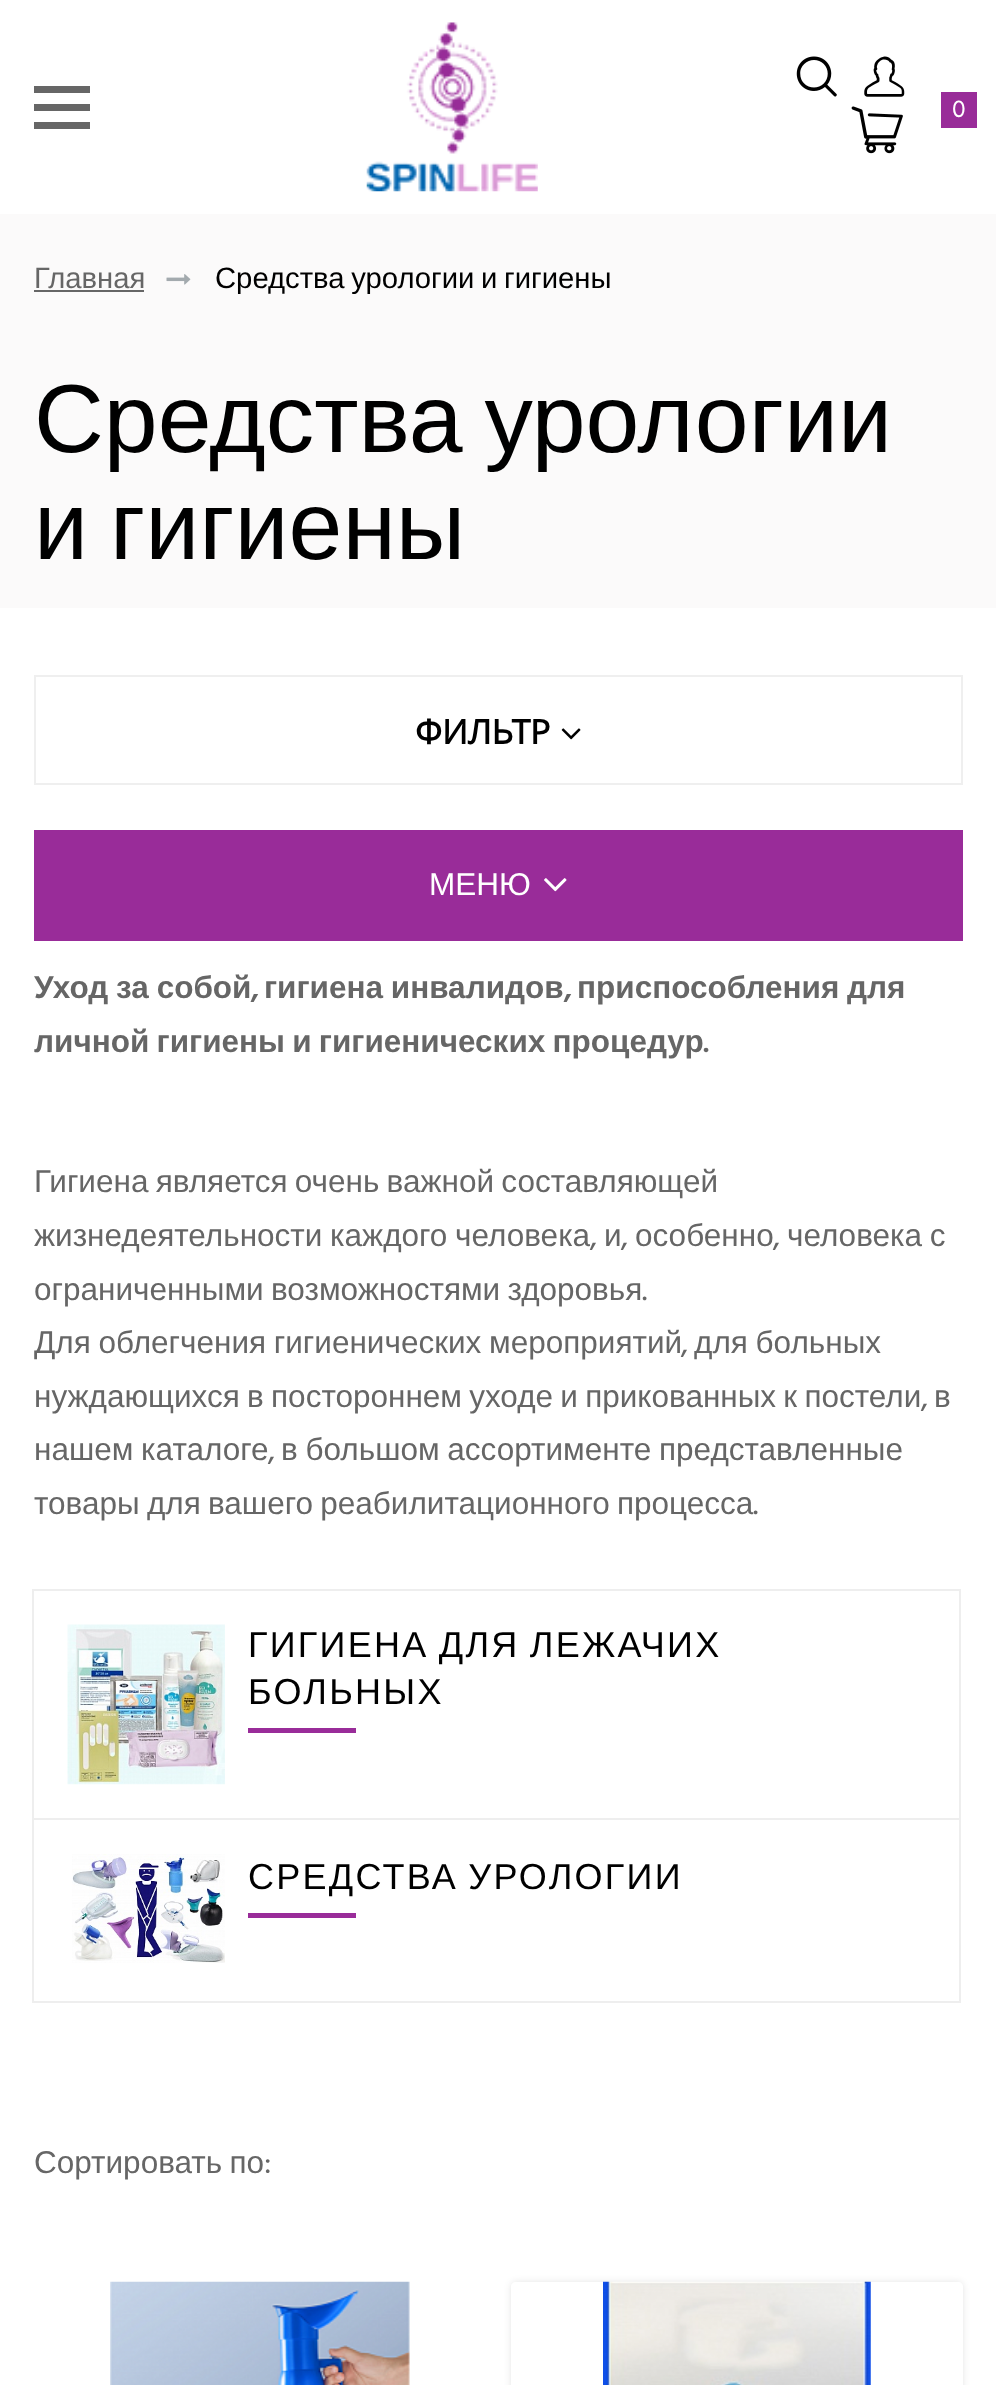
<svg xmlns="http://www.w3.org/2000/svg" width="996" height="2385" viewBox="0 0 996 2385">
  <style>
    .t1 { font: 25px Hind Siliguri; fill: #fff; }
    .t2 { font: 29.25px Liberation Sans; fill: #666; }
    .t3 { font: 29.25px Liberation Sans; fill: #000; }
    .t4 { font: 96.75px Liberation Sans; fill: #000; }
    .t5 { font: bold 33.75px Open Sans; fill: #000; }
    .t6 { font: 31.5px Liberation Sans; fill: #fff; }
    .t7 { font: bold 31.5px Liberation Sans; fill: #666; }
    .t8 { font: bold 31.5px Hind Siliguri; fill: #666; }
    .t9 { font: 31.5px Liberation Sans; fill: #666; }
    .t10 { font: 31.5px Hind Siliguri; fill: #666; }
    .t11 { font: 36px Liberation Sans; letter-spacing: 2.25px; fill: #000; }
  </style>
  <defs>
    <clipPath id="clip1"><path d="M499 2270H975V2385H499ZM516 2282H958C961 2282 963 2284 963 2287V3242C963 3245 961 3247 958 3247H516C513 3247 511 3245 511 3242V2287C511 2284 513 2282 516 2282Z" clip-rule="evenodd"/></clipPath>
  </defs>
  <rect width="100%" height="100%" fill="#fff"/>
  <rect x="34" y="104" width="56" height="7" fill="#666"/>
  <rect x="34" y="86" width="56" height="7" fill="#666"/>
  <rect x="34" y="122" width="56" height="7" fill="#666"/>
  <image x="366" y="22" width="172" height="170" href="images/1.png"/>
  <image x="796" y="56" width="41" height="41" href="images/2.png"/>
  <image x="864" y="56" width="41" height="41" href="images/3.png"/>
  <image x="851" y="106" width="52" height="48" href="images/4.png"/>
  <rect x="941" y="92" width="36" height="36" fill="#992c99"/>
  <text x="952" y="117" class="t1">0</text>
  <rect x="0" y="214" width="996" height="394" fill="#fbfafa"/>
  <text x="34" y="288" class="t2">Главная</text>
  <rect x="34" y="290" width="110" height="2" fill="#666"/>
  <image x="166" y="274" width="25" height="11" href="images/5.png"/>
  <text x="215" y="288" word-spacing="-1.5" class="t3">Средства урологии и гигиены</text>
  <text x="34" y="452" word-spacing="-5" class="t4">Средства урологии</text>
  <text x="34" y="559" word-spacing="-5" class="t4">и гигиены</text>
  <rect x="35" y="676" width="927" height="108" fill="none" stroke="#efefef" stroke-width="2"/>
  <text x="415" y="744" class="t5">ФИЛЬТР</text>
  <image x="561" y="728" width="20" height="12" href="images/6.png"/>
  <rect x="34" y="830" width="929" height="111" fill="#992c99"/>
  <text x="429" y="895" class="t6">МЕНЮ</text>
  <image x="544" y="878" width="23" height="14" href="images/7.png"/>
  <text x="34" y="998" word-spacing="-1" class="t7">Уход за собой</text>
  <text x="251" y="998" class="t8">,</text>
  <text x="264" y="998" word-spacing="-1" class="t7">гигиена инвалидов</text>
  <text x="564" y="998" class="t8">,</text>
  <text x="577" y="998" word-spacing="-1" class="t7">приспособления для</text>
  <text x="34" y="1052" word-spacing="-1.5" class="t7">личной гигиены и гигиенических процедур</text>
  <text x="703" y="1052" class="t8">.</text>
  <text x="34" y="1192" word-spacing="-1.5" class="t9">Гигиена является очень важной составляющей</text>
  <text x="34" y="1246" word-spacing="-1" class="t9">жизнедеятельности каждого человека</text>
  <text x="590" y="1246" class="t10">,</text>
  <text x="604" y="1246" class="t9">и</text>
  <text x="621" y="1246" class="t10">,</text>
  <text x="635" y="1246" class="t9">особенно</text>
  <text x="773" y="1246" class="t10">,</text>
  <text x="787" y="1246" word-spacing="-1" class="t9">человека с</text>
  <text x="34" y="1300" word-spacing="-1.5" class="t9">ограниченными возможностями здоровья</text>
  <text x="642" y="1300" class="t10">.</text>
  <text x="34" y="1353" word-spacing="-1" class="t9">Для облегчения гигиенических мероприятий</text>
  <text x="681" y="1353" class="t10">,</text>
  <text x="694" y="1353" word-spacing="-1" class="t9">для больных</text>
  <text x="34" y="1407" word-spacing="-1.5" class="t9">нуждающихся в постороннем уходе и прикованных к постели</text>
  <text x="921" y="1407" class="t10">,</text>
  <text x="934" y="1407" class="t9">в</text>
  <text x="34" y="1460" word-spacing="-1" class="t9">нашем каталоге</text>
  <text x="268" y="1460" class="t10">,</text>
  <text x="281" y="1460" word-spacing="-1" class="t9">в большом ассортименте представленные</text>
  <text x="34" y="1514" word-spacing="-1.5" class="t9">товары для вашего реабилитационного процесса</text>
  <text x="753" y="1514" class="t10">.</text>
  <rect x="33" y="1590" width="927" height="229" fill="none" stroke="#eee" stroke-width="2"/>
  <image x="67" y="1624" width="158" height="161" href="images/8.png"/>
  <text x="248" y="1657" word-spacing="-2" class="t11">ГИГИЕНА ДЛЯ ЛЕЖАЧИХ</text>
  <text x="248" y="1704" class="t11">БОЛЬНЫХ</text>
  <rect x="248" y="1728" width="108" height="5" fill="#992c99"/>
  <rect x="33" y="1819" width="927" height="183" fill="none" stroke="#eee" stroke-width="2"/>
  <image x="72" y="1854" width="153" height="109" href="images/9.png"/>
  <text x="248" y="1889" word-spacing="-2" class="t11">СРЕДСТВА УРОЛОГИИ</text>
  <rect x="248" y="1913" width="108" height="5" fill="#992c99"/>
  <text x="34" y="2173" word-spacing="-1.5" class="t9">Сортировать по</text>
  <text x="264" y="2173" class="t10">:</text>
  <image x="110" y="2281" width="300" height="104" href="images/10.png"/>
  <g clip-path="url(#clip1)">
    <rect x="511" y="2282" width="452" height="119" rx="5" fill="#0000001a" filter="blur(3.5px)"/>
  </g>
  <image x="603" y="2281" width="268" height="104" href="images/11.png"/>
</svg>
